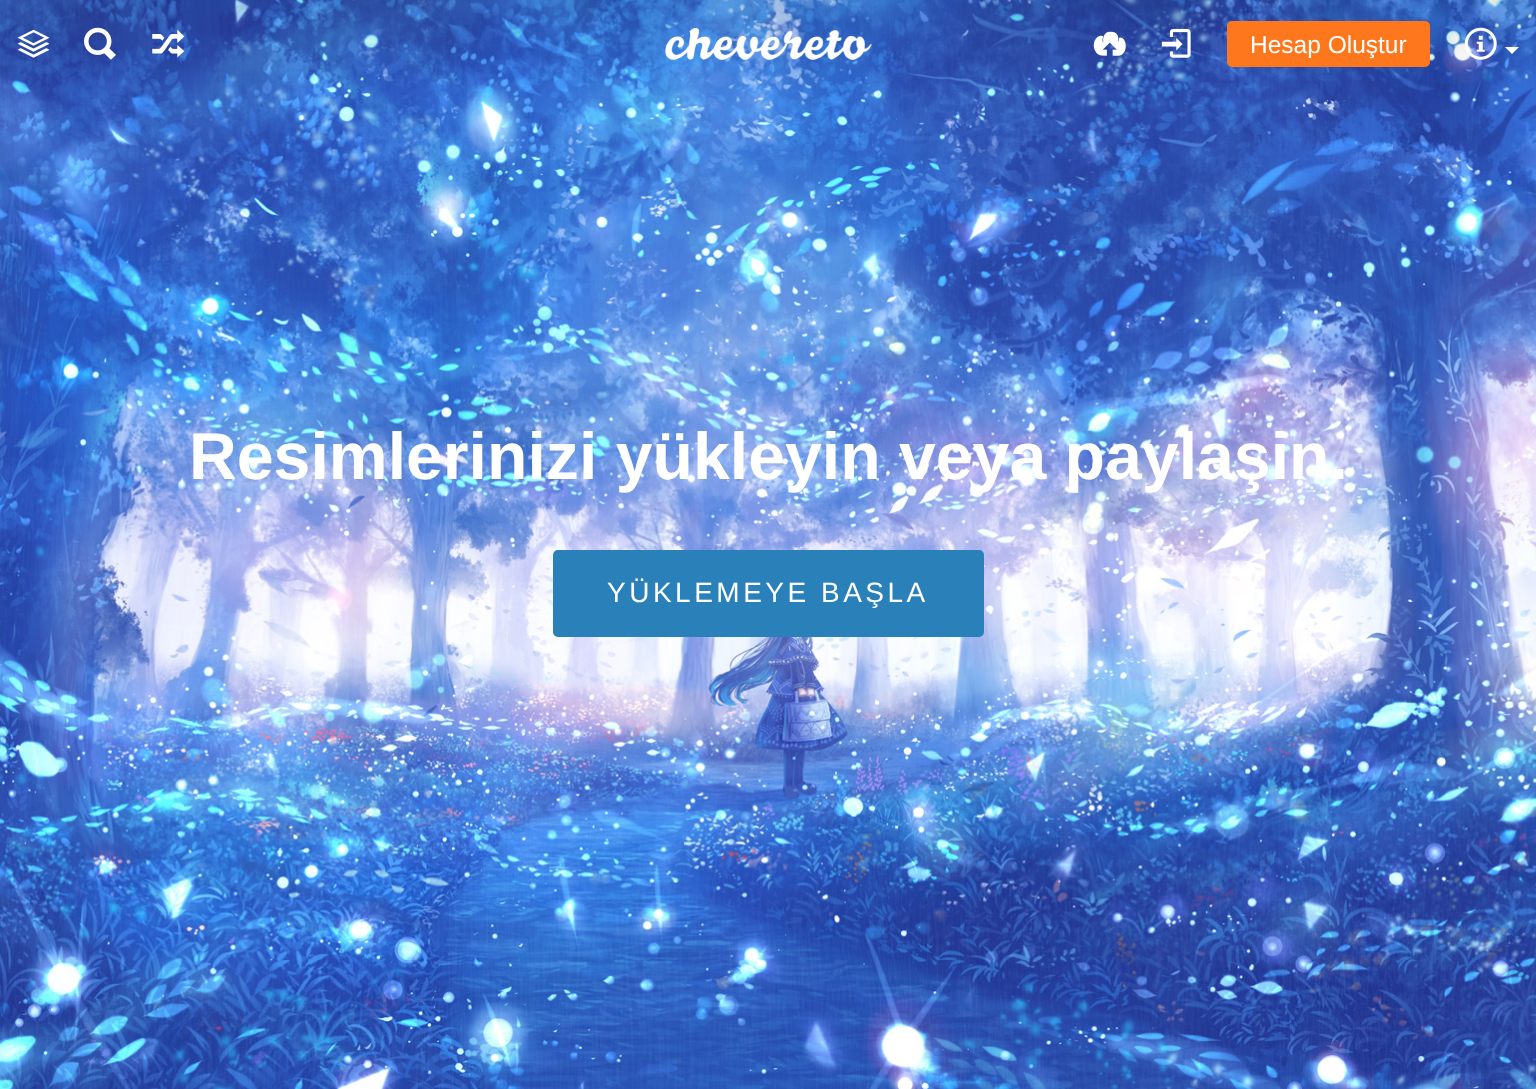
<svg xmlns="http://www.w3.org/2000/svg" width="1536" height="1089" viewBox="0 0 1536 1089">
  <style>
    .t1 { font: 24.5px Liberation Sans; fill: #fff; }
    .t2 { font: bold 66.2px Liberation Sans; fill: #fff; }
    .t3 { font: 28px Liberation Sans; letter-spacing: 3.5px; fill: #fff; }
  </style>
  <rect width="100%" height="100%" fill="#fff"/>
  <image x="0" y="0" width="1536" height="1089" href="images/8.png"/>
  <image x="17" y="29" width="33" height="29" href="images/1.png"/>
  <image x="84" y="27" width="32" height="33" href="images/2.png"/>
  <image x="152" y="29" width="33" height="29" href="images/3.png"/>
  <image x="665" y="28" width="207" height="32" href="images/4.png"/>
  <image x="1093" y="31" width="33" height="25" href="images/5.png"/>
  <image x="1161" y="28" width="30" height="30" href="images/6.png"/>
  <rect x="1227" y="21" width="203" height="46" rx="5" fill="#fe771d"/>
  <text x="1250" y="53" class="t1">Hesap Oluştur</text>
  <image x="1464" y="27" width="33" height="33" href="images/7.png"/>
  <path d="M1505 47H1519L1512 54Z" fill="#fff"/>
  <text x="189" y="479" class="t2">Resimlerinizi yükleyin veya paylaşin.</text>
  <rect x="553" y="550" width="431" height="87" rx="5" fill="#2a80b9"/>
  <text x="607" y="602" class="t3">YÜKLEMEYE BAŞLA</text>
</svg>
